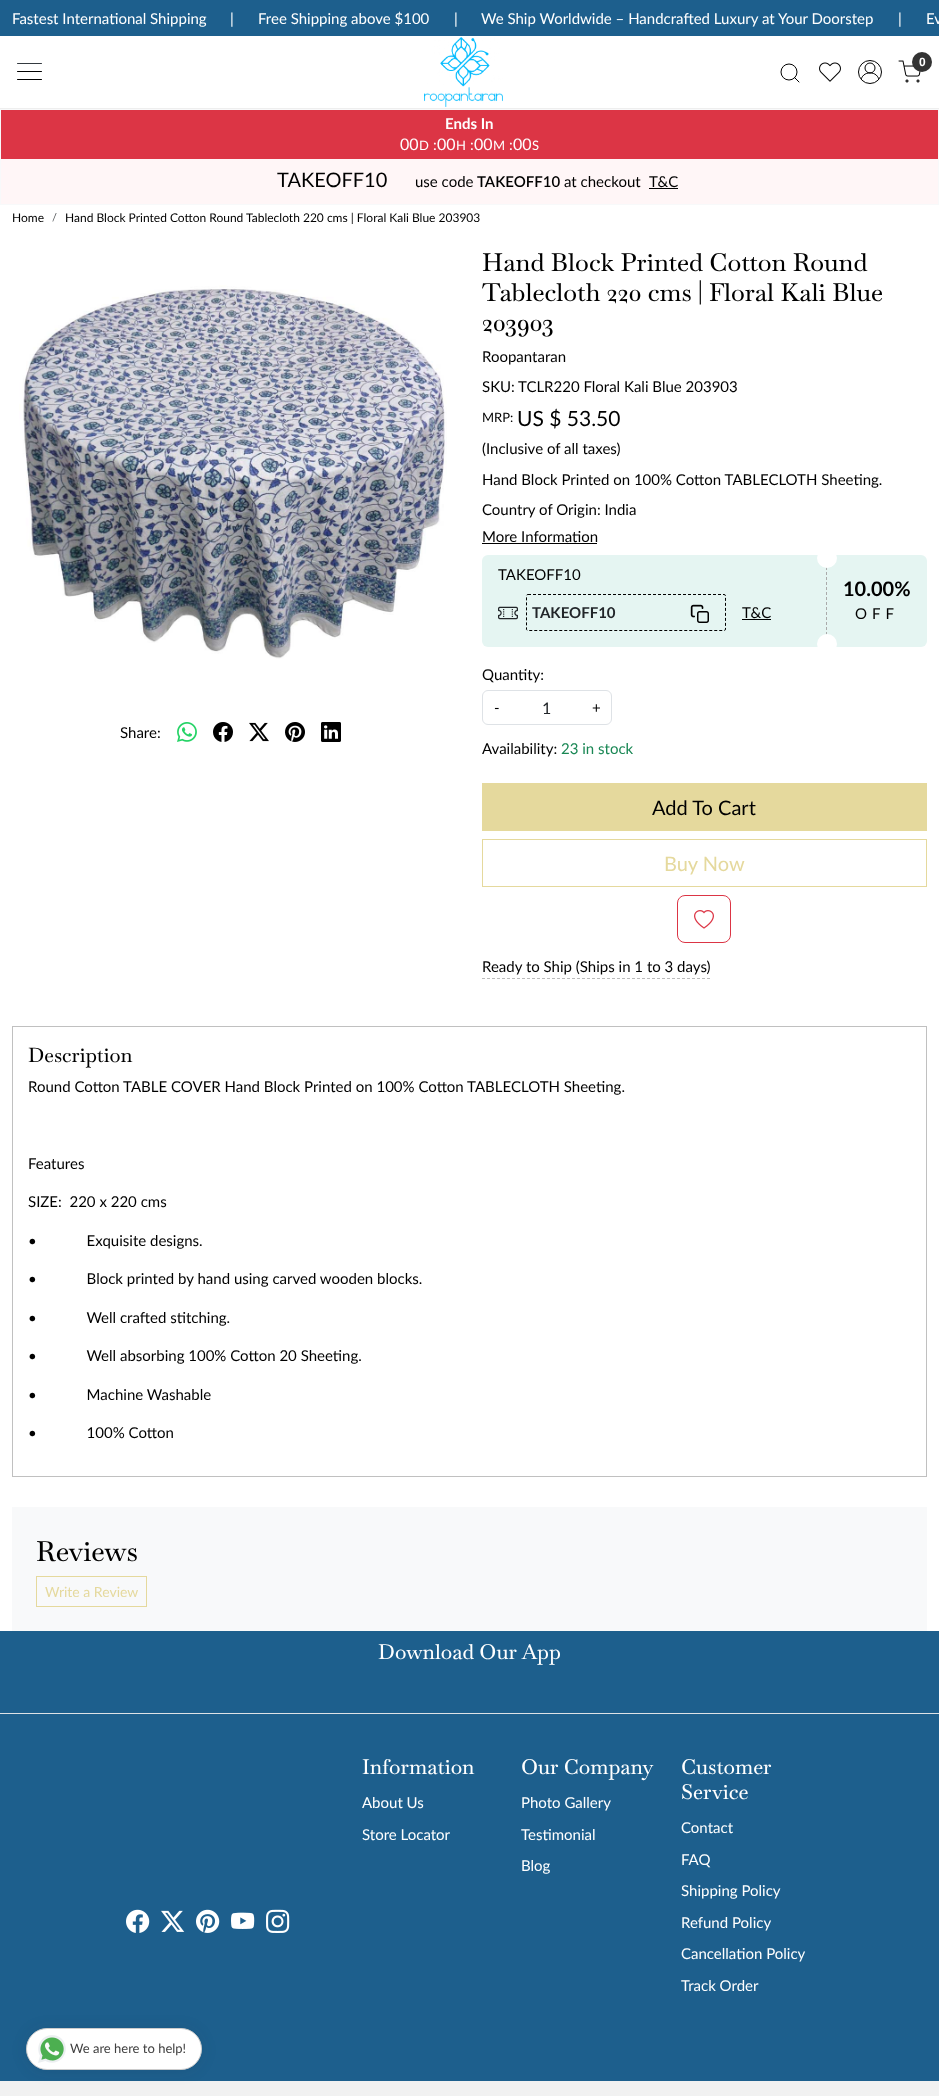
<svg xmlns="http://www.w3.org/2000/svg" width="939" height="2096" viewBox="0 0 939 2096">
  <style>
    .t1 { font: 15px Lato; fill: #fff; }
    .t2 { font: bold 12px Liberation Sans; fill: #fff; }
    .t3 { font: bold 15px Lato; fill: #fff; }
    .t4 { font: 16px Lato; fill: #fff; }
    .t5 { font: 13px Lato; fill: #fff; }
    .t6 { font: 20px Lato; fill: #000; }
    .t7 { font: 15px Lato; fill: #000; }
    .t8 { font: 600 15px Lato; fill: #000; }
    .t9 { font: 12px Lato; fill: #000; }
    .t10 { font: 11px Lato; fill: #595c5f; }
    .t11 { font: 500 25px Baskervville; fill: #000; }
    .t12 { font: 13px Lato; fill: #000; }
    .t13 { font: 21px Lato; fill: #000; }
    .t14 { font: bold 15px Lato; fill: #212529; }
    .t15 { font: bold 20px Lato; fill: #000; }
    .t16 { font: 15px Lato; letter-spacing: 5px; fill: #000; }
    .t17 { font: 16px Lato; fill: #212529; }
    .t18 { font: 15px Lato; fill: #198754; }
    .t19 { font: 20px Lato; fill: #e5d99d; }
    .t20 { font: 500 20px Baskervville; fill: #000; }
    .t21 { font: 500 28px Baskervville; fill: #000; }
    .t22 { font: 14px Lato; fill: #e5d99d; }
    .t23 { font: 500 20.75px Baskervville; fill: #fff; }
    .t24 { font: 13px Lato; fill: #404040; }
  </style>
  <defs>
    <clipPath id="clip1"><rect x="859" y="61" width="22" height="22" rx="11"/></clipPath>
  </defs>
  <rect width="100%" height="100%" fill="#fff"/>
  <rect x="0" y="0" width="939" height="36" fill="#1d5f8d"/>
  <text x="12" y="24" class="t1">Fastest International Shipping</text>
  <text x="230" y="24" class="t1">|</text>
  <text x="258" y="24" class="t1">Free Shipping above $100</text>
  <text x="454" y="24" class="t1">|</text>
  <text x="481" y="24" class="t1">We Ship Worldwide – Handcrafted Luxury at Your Doorstep</text>
  <text x="898" y="24" class="t1">|</text>
  <text x="926" y="24" class="t1">Ev</text>
  <rect x="0" y="108" width="939" height="1" fill="#eee"/>
  <image x="424" y="37" width="79" height="70" href="images/1.png"/>
  <circle cx="789" cy="72" r="8" fill="none" stroke="#000"/>
  <path d="M799 82L794.5 77.5" fill="none" stroke="#000" stroke-linecap="round" stroke-linejoin="round"/>
  <image x="819" y="62" width="22" height="20" href="images/2.png"/>
  <circle cx="870" cy="72" r="11.5" fill="none" stroke="#000"/>
  <g clip-path="url(#clip1)">
    <path d="M861 81C861 70 879 70 879 81" fill="none" stroke="#000" stroke-linecap="square"/>
  </g>
  <circle cx="870" cy="68" r="5" fill="none" stroke="#000"/>
  <image x="898" y="60" width="23" height="23" href="images/3.png"/>
  <circle cx="922" cy="62" r="10" fill="#333"/>
  <text x="919" y="66" class="t2">0</text>
  <rect x="17" y="79" width="25" height="1" rx="0.5" fill="#000"/>
  <rect x="17" y="71" width="25" height="1" rx="0.5" fill="#000"/>
  <rect x="17" y="63" width="25" height="1" rx="0.5" fill="#343a40"/>
  <rect x="0" y="109" width="939" height="96" fill="#f8f9fa"/>
  <rect x="1" y="159" width="937" height="45" fill="#fff6f7"/>
  <rect x="1" y="110" width="937" height="49" fill="#dc3545"/>
  <text x="445" y="129" class="t3">Ends In</text>
  <text x="400" y="150" class="t4">00</text>
  <text x="419" y="150" class="t5">D</text>
  <text x="433" y="150" class="t1">:</text>
  <text x="437" y="150" class="t4">00</text>
  <text x="456" y="150" class="t5">H</text>
  <text x="470" y="150" class="t1">:</text>
  <text x="474" y="150" class="t4">00</text>
  <text x="493" y="150" class="t5">M</text>
  <text x="509" y="150" class="t1">:</text>
  <text x="513" y="150" class="t4">00</text>
  <text x="532" y="150" class="t5">S</text>
  <text x="277" y="187" class="t6">TAKEOFF10</text>
  <text x="415" y="187" class="t7">use code</text>
  <text x="477" y="187" class="t8">TAKEOFF10</text>
  <text x="564" y="187" class="t7">at checkout</text>
  <text x="649" y="187" class="t7">T&amp;C</text>
  <rect x="649" y="188" width="29" height="1" fill="#000"/>
  <text x="12" y="222" class="t9">Home</text>
  <text x="52" y="221" class="t10">/</text>
  <text x="65" y="222" class="t9">Hand Block Printed Cotton Round Tablecloth 220 cms | Floral Kali Blue 203903</text>
  <image x="19" y="285" width="428" height="374" href="images/4.png"/>
  <text x="120" y="738" class="t7">Share:</text>
  <image x="177" y="722" width="20" height="20" href="images/5.png"/>
  <image x="213" y="722" width="20" height="20" href="images/6.png"/>
  <image x="249" y="722" width="20" height="20" href="images/7.png"/>
  <image x="285" y="722" width="20" height="20" href="images/8.png"/>
  <image x="321" y="722" width="20" height="20" href="images/9.png"/>
  <text x="482" y="271" class="t11">Hand Block Printed Cotton Round</text>
  <text x="482" y="301" class="t11">Tablecloth 220 cms | Floral Kali Blue</text>
  <text x="482" y="331" class="t11">203903</text>
  <text x="482" y="362" class="t7">Roopantaran</text>
  <text x="482" y="392" class="t7">SKU:</text>
  <text x="518" y="392" class="t7">TCLR220 Floral Kali Blue 203903</text>
  <text x="482" y="422" class="t12">MRP:</text>
  <text x="517" y="426" class="t13">US $ 53.50</text>
  <text x="482" y="454" class="t7">(Inclusive of all taxes)</text>
  <text x="482" y="485" class="t7">Hand Block Printed on 100% Cotton TABLECLOTH Sheeting.</text>
  <text x="482" y="515" class="t7">Country of Origin: India</text>
  <text x="482" y="542" class="t7">More Information</text>
  <rect x="482" y="543" width="115" height="1" fill="#000"/>
  <rect x="482" y="555" width="445" height="92" rx="6" fill="#e5f5f2"/>
  <text x="498" y="580" class="t7">TAKEOFF10</text>
  <image x="498" y="606" width="20" height="14" href="images/10.png"/>
  <path d="M528 594.5H724C725 594.5 725.5 595 725.5 596V629C725.5 630 725 630.5 724 630.5H528C527 630.5 526.5 630 526.5 629V596C526.5 595 527 594.5 528 594.5Z" fill="none" stroke="#000" stroke-dasharray="3 2"/>
  <text x="532" y="618" class="t14">TAKEOFF10</text>
  <image x="690" y="604" width="19" height="19" href="images/11.png"/>
  <text x="742" y="618" class="t7">T&amp;C</text>
  <rect x="742" y="619" width="29" height="1" fill="#000"/>
  <path d="M826.5 562V640" fill="none" stroke="#aaa" stroke-dasharray="3 2"/>
  <circle cx="827" cy="558" r="10" fill="#fff"/>
  <text x="843" y="596" class="t15">10.00%</text>
  <text x="855" y="619" class="t16">OFF</text>
  <circle cx="827" cy="644" r="10" fill="#fff"/>
  <text x="482" y="680" class="t7">Quantity:</text>
  <rect x="482.5" y="690.5" width="129" height="34" rx="5.5" fill="none" stroke="#dee2e6"/>
  <text x="494" y="713" class="t7">-</text>
  <text x="542" y="714" class="t17">1</text>
  <text x="592" y="713" class="t7">+</text>
  <text x="482" y="754" class="t7">Availability:</text>
  <text x="561" y="754" class="t18">23 in stock</text>
  <rect x="482" y="783" width="445" height="48" fill="#e5d99d"/>
  <text x="652" y="815" class="t6">Add To Cart</text>
  <rect x="482.5" y="839.5" width="444" height="47" fill="none" stroke="#e5d99d"/>
  <text x="664" y="871" class="t19">Buy Now</text>
  <rect x="677.5" y="895.5" width="53" height="47" rx="7.5" fill="none" stroke="#dc3545"/>
  <image x="694" y="910" width="20" height="19" href="images/12.png"/>
  <text x="482" y="972" class="t7">Ready to Ship (Ships in 1 to 3 days)</text>
  <path d="M482 978.5H710" fill="none" stroke="#bbb" stroke-dasharray="3 2"/>
  <rect x="12.5" y="1026.5" width="914" height="450" fill="none" stroke="#c0c0c0"/>
  <text x="28" y="1062" class="t20">Description</text>
  <text x="28" y="1092" class="t7">Round Cotton TABLE COVER Hand Block Printed on 100% Cotton TABLECLOTH Sheeting.</text>
  <text x="28" y="1169" class="t7">Features</text>
  <text x="28" y="1207" class="t7" xml:space="preserve">SIZE:  220 x 220 cms</text>
  <text x="28" y="1246" class="t7" xml:space="preserve">•             Exquisite designs.</text>
  <text x="28" y="1284" class="t7" xml:space="preserve">•             Block printed by hand using carved wooden blocks.</text>
  <text x="28" y="1323" class="t7" xml:space="preserve">•             Well crafted stitching.</text>
  <text x="28" y="1361" class="t7" xml:space="preserve">•             Well absorbing 100% Cotton 20 Sheeting.</text>
  <text x="28" y="1400" class="t7" xml:space="preserve">•             Machine Washable</text>
  <text x="28" y="1438" class="t7" xml:space="preserve">•             100% Cotton</text>
  <rect x="12" y="1507" width="915" height="124" fill="#f8f9fa"/>
  <text x="36" y="1561" class="t21">Reviews</text>
  <rect x="36.5" y="1576.5" width="110" height="30" fill="none" stroke="#e5d99d"/>
  <text x="45" y="1597" class="t22">Write a Review</text>
  <rect x="0" y="1631" width="939" height="450" fill="#1d5f8d"/>
  <rect x="0" y="1713" width="939" height="1" fill="#dee2e6"/>
  <text x="378" y="1659" class="t23">Download Our App</text>
  <image x="126" y="1909" width="24" height="24" href="images/13.png"/>
  <image x="161" y="1910" width="24" height="22" href="images/14.png"/>
  <image x="196" y="1909" width="24" height="24" href="images/15.png"/>
  <image x="231" y="1912" width="24" height="17" href="images/16.png"/>
  <image x="266" y="1909" width="24" height="24" href="images/17.png"/>
  <text x="362" y="1774" class="t23">Information</text>
  <text x="362" y="1808" class="t1">About Us</text>
  <text x="362" y="1840" class="t1">Store Locator</text>
  <text x="521" y="1774" class="t23">Our Company</text>
  <text x="521" y="1808" class="t1">Photo Gallery</text>
  <text x="521" y="1840" class="t1">Testimonial</text>
  <text x="521" y="1871" class="t1">Blog</text>
  <text x="681" y="1774" class="t23">Customer</text>
  <text x="681" y="1799" class="t23">Service</text>
  <text x="681" y="1833" class="t1">Contact</text>
  <text x="681" y="1865" class="t1">FAQ</text>
  <text x="681" y="1896" class="t1">Shipping Policy</text>
  <text x="681" y="1928" class="t1">Refund Policy</text>
  <text x="681" y="1959" class="t1">Cancellation Policy</text>
  <text x="681" y="1991" class="t1">Track Order</text>
  <rect x="0" y="2081" width="939" height="15" fill="#f1f1f1"/>
  <rect x="26" y="2029" width="176" height="42" rx="21" fill="#2021241a" filter="blur(7.5px)"/>
  <rect x="26.5" y="2028.5" width="175" height="41" rx="20.5" fill="#fff" stroke="#ccc"/>
  <image x="38" y="2035" width="28" height="28" href="images/18.png"/>
  <text x="70" y="2053" class="t24">We are here to help!</text>
</svg>
